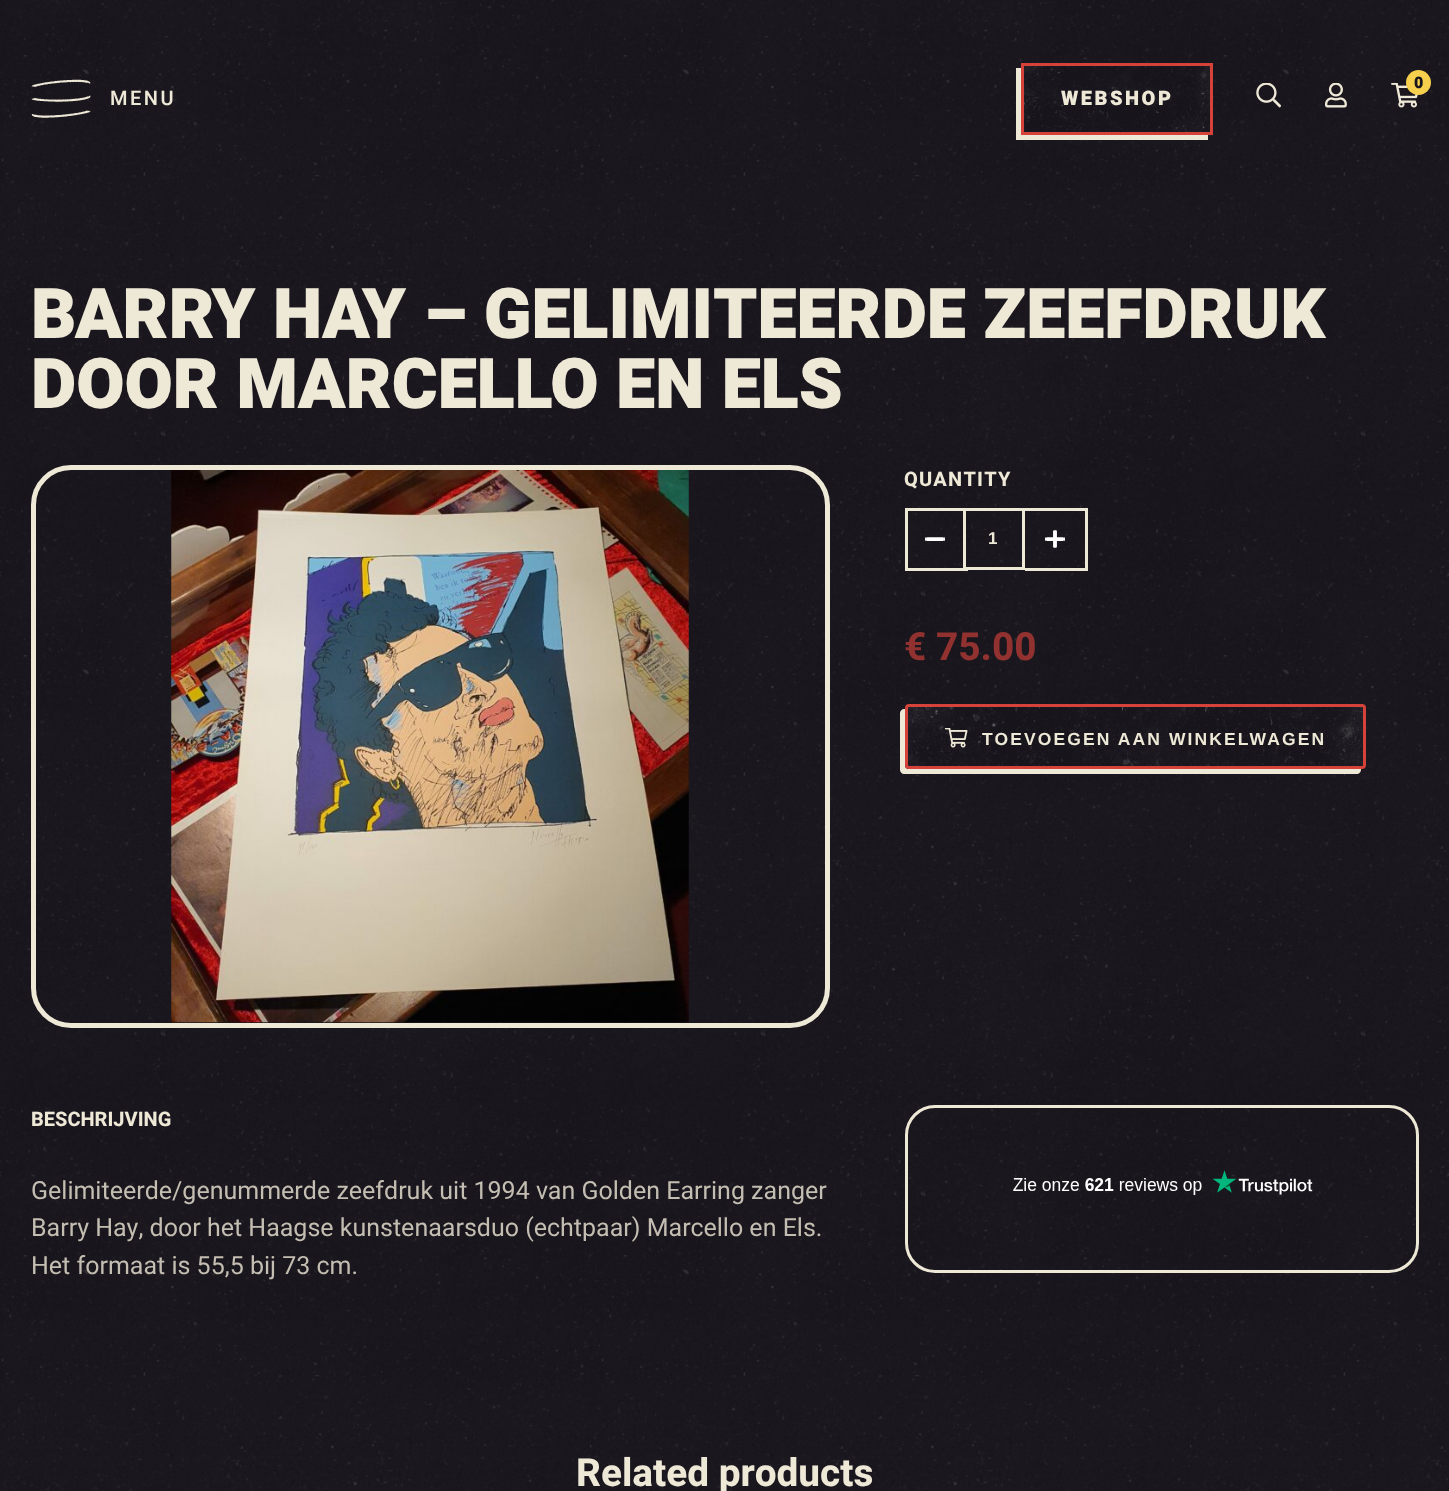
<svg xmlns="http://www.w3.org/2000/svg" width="1449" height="1491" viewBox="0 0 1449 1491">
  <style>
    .t1 { font: 500 20px Heebo; letter-spacing: 2.5px; fill: #eee8d7; }
    .t2 { font: 900 20px Heebo; letter-spacing: 2.5px; fill: #eee8d7; }
    .t3 { font: 900 16px Heebo; fill: #17141b; }
    .t4 { font: 900 70px Heebo; fill: #eee8d7; }
    .t5 { font: bold 20px Heebo; letter-spacing: 1.25px; fill: #eee8d7; }
    .t6 { font: bold 17px Liberation Sans; fill: #eee8d7; }
    .t7 { font: bold 38.75px Heebo; fill: #913230; }
    .t8 { font: bold 17.5px Liberation Sans; letter-spacing: 2.1px; fill: #eee8d7; }
    .t9 { font: bold 20px Heebo; fill: #eee8d7; }
    .t10 { font: 25px Heebo; fill: #c4beb2; }
    .t11 { font: bold 38.75px Heebo; fill: #eee8d7; }
  </style>
  <rect width="100%" height="100%" fill="#17141b"/>
  <image x="0" y="0" width="1449" height="1491" href="images/1.png"/>
  <image x="31" y="79" width="60" height="39" href="images/2.png"/>
  <text x="110" y="105" class="t1">MENU</text>
  <path d="M1016 68V140H1208V135H1021V68Z" fill="#eee8d7"/>
  <rect x="1024" y="66" width="186" height="66" fill="#17141b"/>
  <image x="1024" y="66" width="186" height="66" href="images/3.png"/>
  <rect x="1022.5" y="64.5" width="189" height="69" fill="none" stroke="#d4423a" stroke-width="3"/>
  <text x="1061" y="105" class="t2">WEBSHOP</text>
  <image x="1256" y="83" width="25" height="25" href="images/4.png"/>
  <image x="1325" y="83" width="22" height="25" href="images/5.png"/>
  <image x="1391" y="83" width="27" height="25" href="images/6.png"/>
  <circle cx="1418.5" cy="82.5" r="12.5" fill="#f6cf4d"/>
  <text x="1414" y="88" class="t3">0</text>
  <text x="31" y="338" class="t4">BARRY HAY – GELIMITEERDE ZEEFDRUK</text>
  <text x="31" y="408" class="t4">DOOR MARCELLO EN ELS</text>
  <rect x="33.5" y="467.5" width="794" height="558" rx="37.5" fill="none" stroke="#eee8d7" stroke-width="5"/>
  <image x="171" y="470" width="518" height="553" href="images/7.png"/>
  <text x="904" y="486" class="t5">QUANTITY</text>
  <rect x="964.5" y="509.5" width="59" height="59" fill="none" stroke="#eee8d7" stroke-width="3"/>
  <rect x="905" y="508" width="63" height="3" fill="#eee8d7"/>
  <rect x="905" y="568" width="63" height="3" fill="#eee8d7"/>
  <rect x="905" y="508" width="3" height="62" fill="#eee8d7"/>
  <image x="925" y="537" width="20" height="4" href="images/8.png"/>
  <text x="988" y="544" class="t6">1</text>
  <rect x="1025" y="508" width="63" height="3" fill="#eee8d7"/>
  <rect x="1085" y="508" width="3" height="62" fill="#eee8d7"/>
  <rect x="1025" y="568" width="63" height="3" fill="#eee8d7"/>
  <image x="1045" y="530" width="20" height="18" href="images/9.png"/>
  <text x="904" y="660" class="t7">€</text>
  <text x="936" y="660" class="t7">75.00</text>
  <path d="M904 709C902 709 900 711 900 713V770C900 772 902 774 904 774H1357C1359 774 1361 772 1361 770V769H909C907 769 905 767 905 765V709Z" fill="#eee8d7"/>
  <rect x="905" y="704" width="461" height="65" rx="4" fill="#17141b"/>
  <image x="908" y="707" width="456" height="62" href="images/10.png"/>
  <rect x="906.5" y="705.5" width="458" height="62" rx="2.5" fill="none" stroke="#d4423a" stroke-width="3"/>
  <image x="945" y="728" width="23" height="20" href="images/11.png"/>
  <text x="982" y="745" class="t8">TOEVOEGEN AAN WINKELWAGEN</text>
  <text x="31" y="1126" class="t9">BESCHRIJVING</text>
  <text x="31" y="1199" class="t10">Gelimiteerde/genummerde zeefdruk uit 1994 van Golden Earring zanger</text>
  <text x="31" y="1236" class="t10">Barry Hay, door het Haagse kunstenaarsduo (echtpaar) Marcello en Els.</text>
  <text x="31" y="1274" class="t10">Het formaat is 55,5 bij 73 cm.</text>
  <rect x="906.5" y="1106.5" width="511" height="165" rx="28.5" fill="none" stroke="#eee8d7" stroke-width="3"/>
  <image x="1013" y="1170" width="300" height="25" href="images/12.png"/>
  <text x="576" y="1486" class="t11">Related products</text>
</svg>
